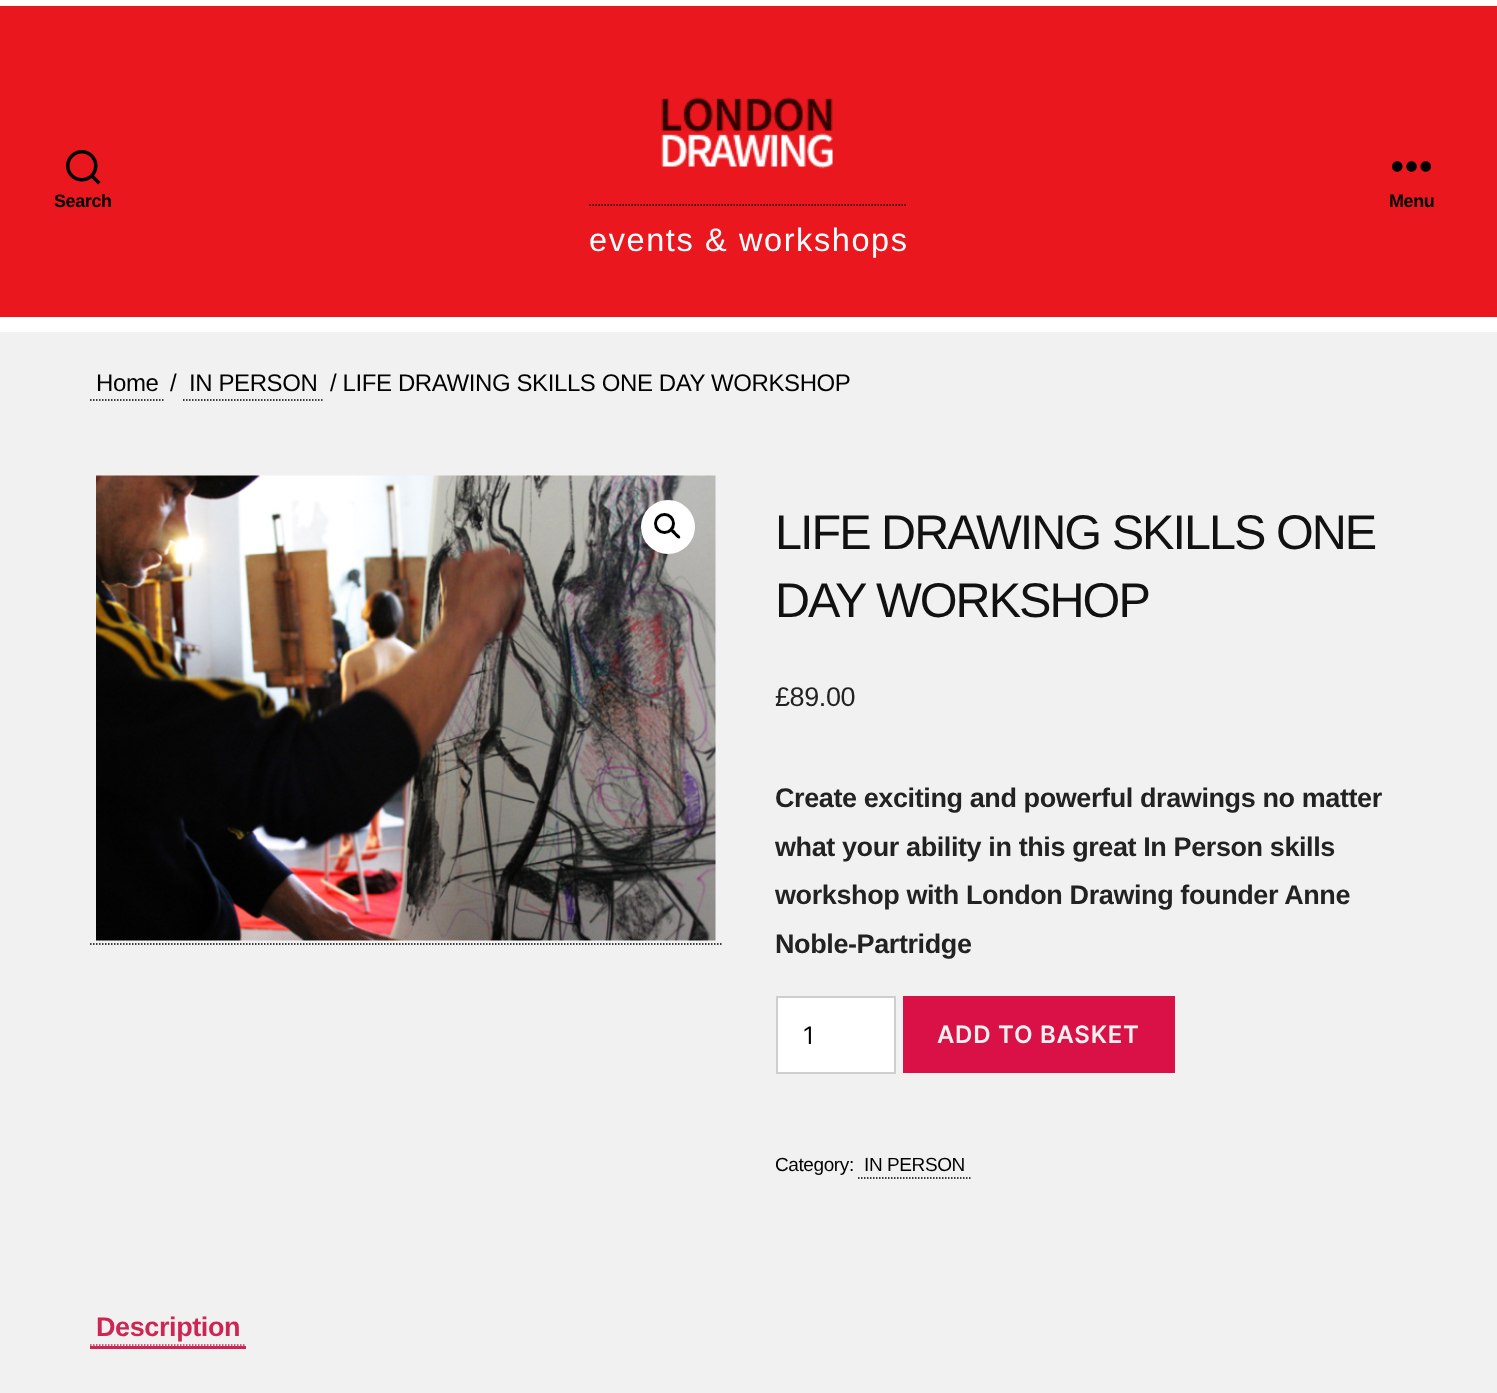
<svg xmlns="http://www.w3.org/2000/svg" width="1497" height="1393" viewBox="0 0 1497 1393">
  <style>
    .t1 { font: bold 18px Liberation Sans; letter-spacing: -0.4px; fill: #000; }
    .t2 { font: 32.5px Liberation Sans; letter-spacing: 1.6px; fill: #fff; }
    .t3 { font: 24px Liberation Sans; letter-spacing: -0.4px; fill: #000; }
    .t4 { font: 48.6px Liberation Sans; letter-spacing: -2px; fill: #111; }
    .t5 { font: 27px Liberation Sans; letter-spacing: -0.4px; fill: #222; }
    .t6 { font: bold 27px Liberation Sans; letter-spacing: -0.4px; fill: #222; }
    .t7 { font: 24px Inter; fill: #000; }
    .t8 { font: 600 24px Inter; letter-spacing: 0.75px; fill: #f1f1f1; }
    .t9 { font: 19px Liberation Sans; letter-spacing: -0.4px; fill: #000; }
    .t10 { font: bold 27px Liberation Sans; letter-spacing: -0.4px; fill: #cd2653; }
  </style>
  <rect width="100%" height="100%" fill="#f1f1f1"/>
  <rect x="0" y="6" width="1497" height="311" fill="#ea171e"/>
  <rect x="0" y="0" width="1497" height="6" fill="#fff"/>
  <rect x="0" y="317" width="1497" height="15" fill="#fff"/>
  <image x="66" y="150" width="35" height="35" href="images/1.png"/>
  <text x="54" y="207" class="t1">Search</text>
  <image x="1392" y="161" width="39" height="11" href="images/2.png"/>
  <text x="1389" y="207" class="t1">Menu</text>
  <path d="M589.5 205H907.5" fill="none" stroke="#000" stroke-width="1.5" stroke-dasharray="1.5 1.5"/>
  <image x="661" y="97" width="172" height="72" href="images/3.png"/>
  <text x="589" y="251" class="t2">events &amp; workshops</text>
  <text x="96" y="391" class="t3">Home</text>
  <path d="M90 400H163.5" fill="none" stroke="#000" stroke-width="1.5" stroke-dasharray="1.5 1.5"/>
  <text x="170" y="391" class="t3">/</text>
  <text x="189" y="391" class="t3">IN PERSON</text>
  <path d="M183 400H324" fill="none" stroke="#000" stroke-width="1.5" stroke-dasharray="1.5 1.5"/>
  <text x="330" y="391" class="t3">/ LIFE DRAWING SKILLS ONE DAY WORKSHOP</text>
  <path d="M90 944H721.5" fill="none" stroke="#000" stroke-width="1.5" stroke-dasharray="1.5 1.5"/>
  <image x="96" y="475" width="620" height="466" href="images/4.png"/>
  <circle cx="668" cy="527" r="27" fill="#fff"/>
  <circle cx="664.5" cy="523.5" r="9" fill="none" stroke="#000" stroke-width="3"/>
  <path d="M671.5 529.5C673 528 676 532 676.5 533C677.5 534 681.5 536.5 680 538C678 540 675.5 536 674.5 535C673.5 534 669.5 531.5 671.5 529.5Z" fill="#000"/>
  <text x="775" y="549" class="t4">LIFE DRAWING SKILLS ONE</text>
  <text x="775" y="617" class="t4">DAY WORKSHOP</text>
  <text x="775" y="706" class="t5">£89.00</text>
  <text x="775" y="807" class="t6">Create exciting and powerful drawings no matter</text>
  <text x="775" y="856" class="t6">what your ability in this great In Person skills</text>
  <text x="775" y="904" class="t6">workshop with London Drawing founder Anne</text>
  <text x="775" y="953" class="t6">Noble-Partridge</text>
  <rect x="777" y="997" width="118" height="76" fill="#fff" stroke="#cecece" stroke-width="2"/>
  <text x="803" y="1044" class="t7">1</text>
  <rect x="903" y="996" width="272" height="77" fill="#d91146"/>
  <text x="937" y="1043" class="t8">ADD TO BASKET</text>
  <text x="775" y="1171" class="t9">Category:</text>
  <text x="864" y="1171" class="t9">IN PERSON</text>
  <path d="M858 1178H970.5" fill="none" stroke="#000" stroke-width="1.5" stroke-dasharray="1.5 1.5"/>
  <text x="96" y="1336" class="t10">Description</text>
  <rect x="90" y="1346" width="156" height="3" fill="#cd2653"/>
  <path d="M90 1345H246" fill="none" stroke="#cd2653" stroke-width="1.5" stroke-dasharray="1.5 1.5"/>
</svg>
